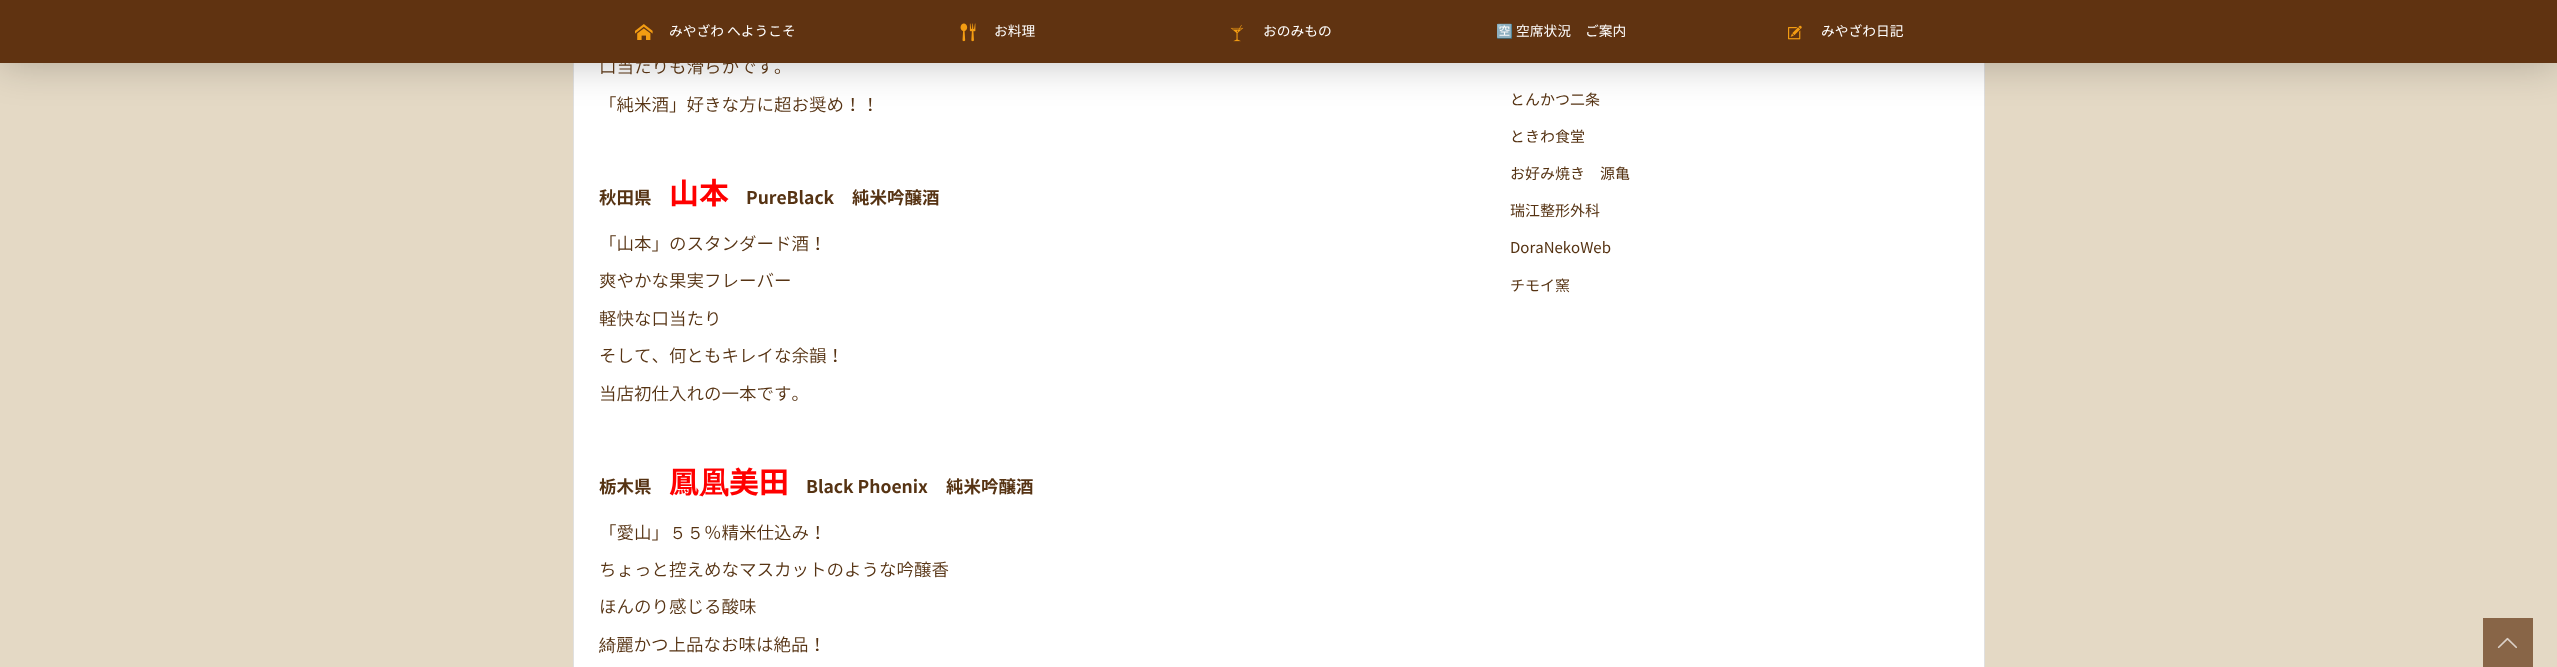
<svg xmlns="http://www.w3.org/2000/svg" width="2557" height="667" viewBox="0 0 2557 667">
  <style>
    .t1 { font: 300 17.5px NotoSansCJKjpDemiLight; fill: #563313; }
    .t2 { font: 13.75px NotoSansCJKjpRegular; fill: #fff; }
    .t3 { font: 13.75px Noto Color Emoji; fill: #fff; }
    .t4 { font: bold 17.5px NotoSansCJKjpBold; fill: #563313; }
    .t5 { font: bold 30px NotoSansCJKjpBold; fill: #f00; }
    .t6 { font: bold 30px WenQuanYi Zen Hei; fill: #f00; }
    .t7 { font: 500 17.5px WenQuanYi Zen Hei; fill: #563313; }
    .t8 { font: 15px NotoSansCJKjpRegular; fill: #563313; }
  </style>
  <rect width="100%" height="100%" fill="#e4d9c5"/>
  <rect x="574" y="63" width="1410" height="604" fill="#fff"/>
  <rect x="573.5" y="-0.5" width="1411" height="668" fill="none" stroke="#e0e0e0"/>
  <rect x="0" y="0" width="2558" height="63" fill="#0000003d" filter="blur(20px)"/>
  <text x="599" y="73" class="t1">口当たりも滑らかです。</text>
  <rect x="0" y="0" width="2557" height="63" fill="#603311"/>
  <image x="635" y="24" width="18" height="16" href="images/1.png"/>
  <text x="669" y="36" class="t2">みやざわ へようこそ</text>
  <image x="960" y="23" width="16" height="19" href="images/2.png"/>
  <text x="994" y="36" class="t2">お料理</text>
  <image x="1230" y="24" width="14" height="18" href="images/3.png"/>
  <text x="1263" y="36" class="t2">おのみもの</text>
  <text x="1496" y="36" class="t3">🈳</text>
  <text x="1516" y="36" class="t2">空席状況</text>
  <text x="1585" y="36" class="t2">ご案内</text>
  <image x="1788" y="25" width="14" height="15" href="images/4.png"/>
  <text x="1821" y="36" class="t2">みやざわ日記</text>
  <text x="599" y="111" class="t1">「純米酒」好きな方に超お奨め！！</text>
  <text x="599" y="204" class="t4">秋田県</text>
  <text x="669" y="204" class="t5">山本</text>
  <text x="746" y="204" class="t4">PureBlack</text>
  <text x="852" y="204" class="t4">純米吟醸酒</text>
  <text x="599" y="250" class="t1">「山本」のスタンダード酒！</text>
  <text x="599" y="287" class="t1">爽やかな果実フレーバー</text>
  <text x="599" y="325" class="t1">軽快な口当たり</text>
  <text x="599" y="362" class="t1">そして、何ともキレイな余韻！</text>
  <text x="599" y="400" class="t1">当店初仕入れの一本です。</text>
  <text x="599" y="493" class="t4">栃木県</text>
  <text x="669" y="493" class="t5">鳳</text>
  <text x="699" y="493" class="t6">凰</text>
  <text x="729" y="493" class="t5">美田</text>
  <text x="806" y="493" class="t4">Black Phoenix</text>
  <text x="946" y="493" class="t4">純米吟醸酒</text>
  <text x="599" y="539" class="t1">「愛山」</text>
  <text x="669" y="539" class="t7">５５</text>
  <text x="704" y="539" class="t1">％精米仕込み！</text>
  <text x="599" y="576" class="t1">ちょっと控えめなマスカットのような吟醸香</text>
  <text x="599" y="613" class="t1">ほんのり感じる酸味</text>
  <text x="599" y="651" class="t7">綺</text>
  <text x="616" y="651" class="t1">麗かつ上品なお味は絶品！</text>
  <text x="1510" y="105" class="t8">とんかつ二条</text>
  <text x="1510" y="142" class="t8">ときわ食堂</text>
  <text x="1510" y="179" class="t8">お好み焼き</text>
  <text x="1600" y="179" class="t8">源亀</text>
  <text x="1510" y="216" class="t8">瑞江整形外科</text>
  <text x="1510" y="253" class="t8">DoraNekoWeb</text>
  <text x="1510" y="291" class="t8">チモイ窯</text>
  <rect x="2483" y="618" width="50" height="49" fill="#886547"/>
  <image x="2497" y="637" width="20" height="12" href="images/5.png"/>
</svg>
